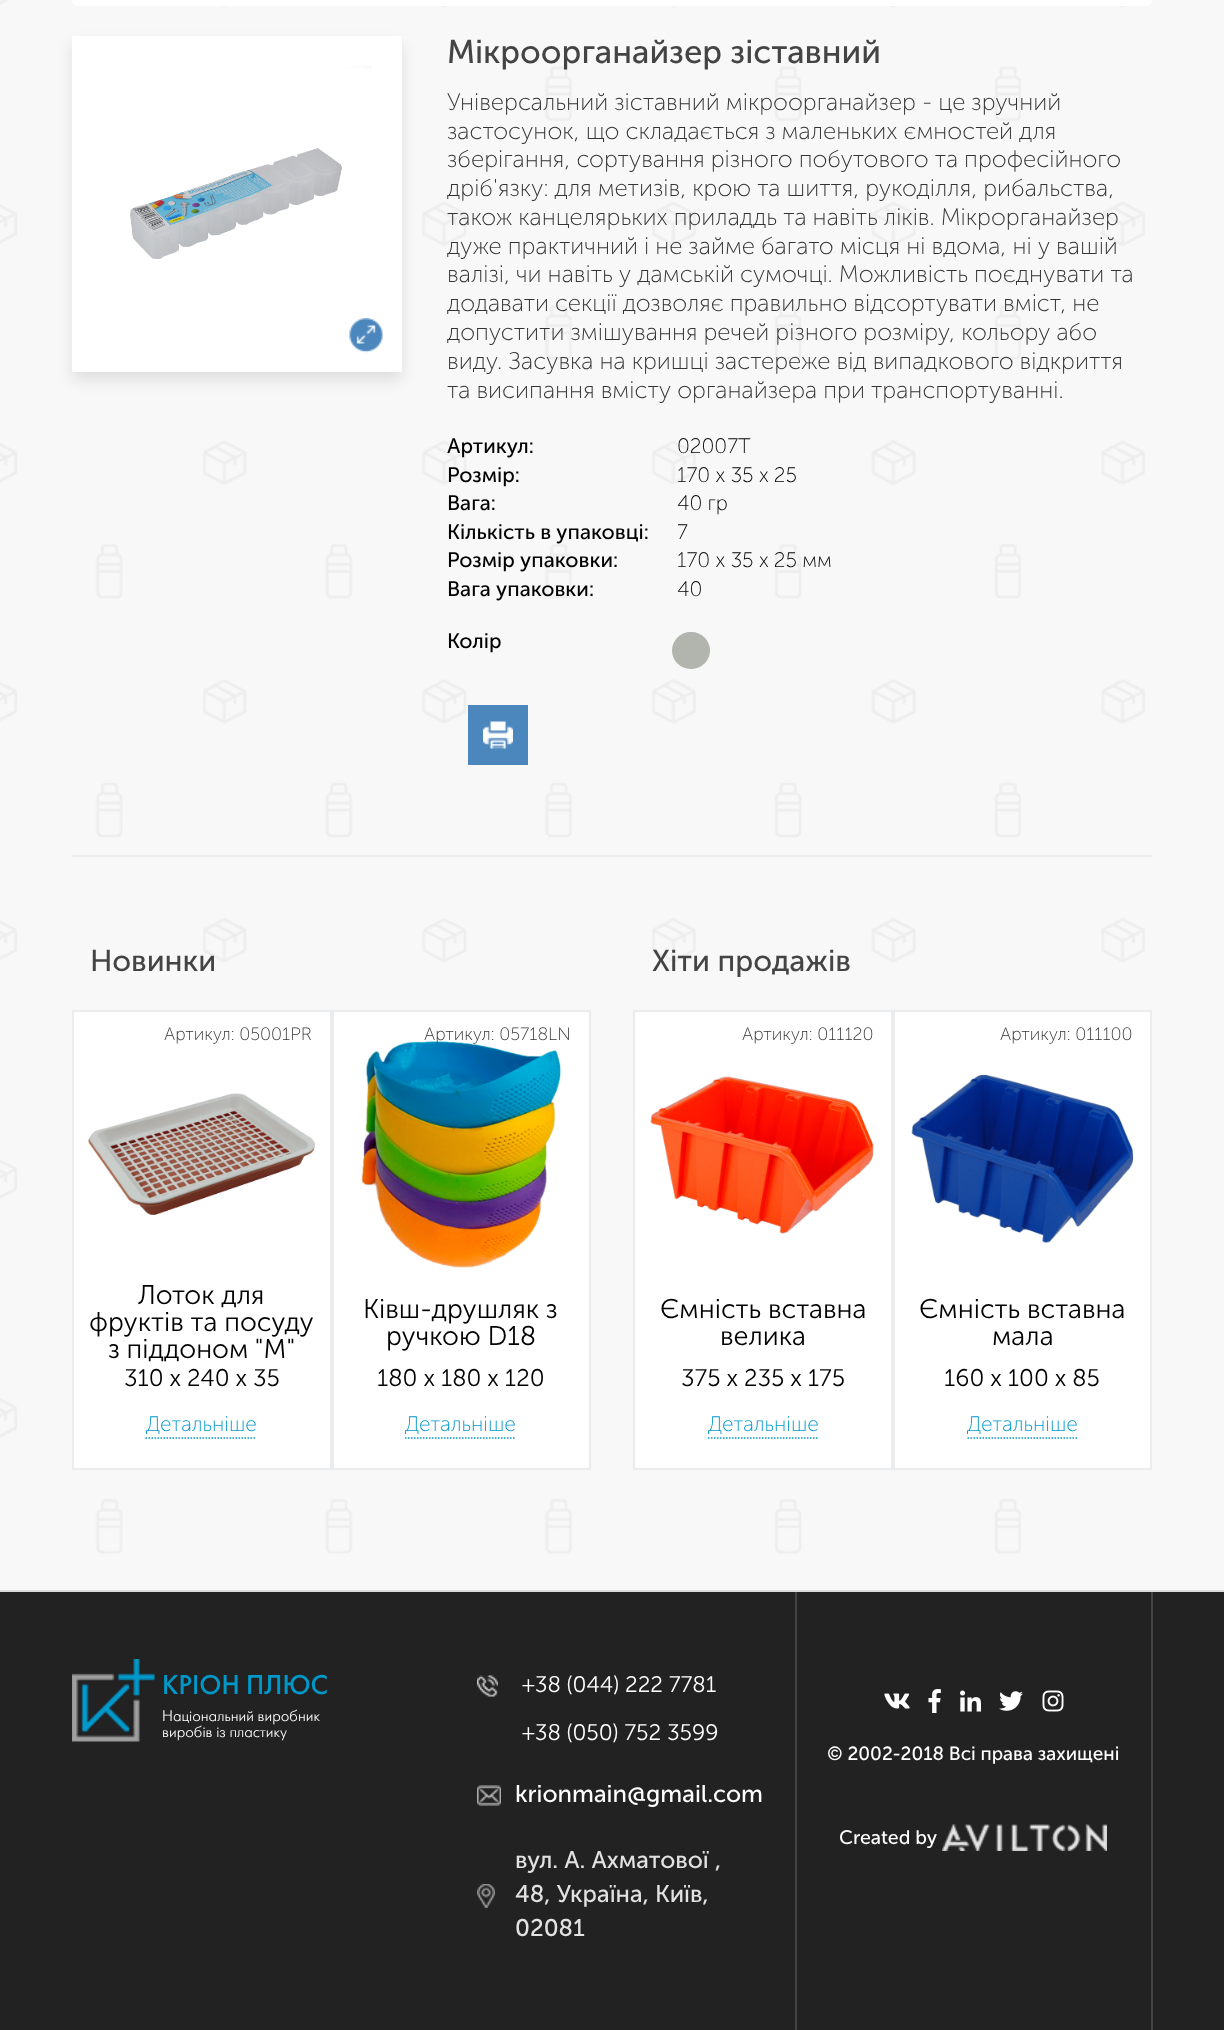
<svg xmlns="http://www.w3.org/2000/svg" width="1224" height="2030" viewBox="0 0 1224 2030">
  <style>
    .t1 { font: 33px 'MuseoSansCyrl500'; fill: #444; }
    .t2 { font: 24px 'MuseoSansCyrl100'; fill: #333; }
    .t3 { font: 21px 'MuseoSansCyrl500'; fill: #000; }
    .t4 { font: 21px 'MuseoSansCyrl100'; fill: #000; }
    .t5 { font: 30px 'MuseoSansCyrl500'; fill: #444; }
    .t6 { font: 18px 'MuseoSansCyrl100'; fill: #333; }
    .t7 { font: 27px 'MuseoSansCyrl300'; fill: #000; }
    .t8 { font: 24px 'MuseoSansCyrl300'; fill: #000; }
    .t9 { font: 21px 'MuseoSansCyrl100'; fill: #0098c8; }
    .t10 { font: 27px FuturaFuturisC; fill: #0098c8; }
    .t11 { font: 300 15.25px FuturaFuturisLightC; fill: #fff; }
    .t12 { font: 22.5px 'MuseoSansCyrl300'; fill: #fff; }
    .t13 { font: 24px 'MuseoSansCyrl500'; fill: #fff; }
    .t14 { font: 24px 'MuseoSansCyrl500'; fill: #e2e2e2; }
    .t15 { font: 19px 'MuseoSansCyrl500'; fill: #fff; }
    .t16 { font: 19.5px 'MuseoSansCyrl500'; fill: #fff; }
  </style>
  <rect width="100%" height="100%" fill="#f9f8f8"/>
  <image x="0" y="0" width="1145" height="1554" href="images/1.png"/>
  <rect x="72" y="-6" width="1080" height="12" rx="6" fill="#fff"/>
  <rect x="72" y="44" width="330" height="336" fill="#0000001a" filter="blur(7.5px)"/>
  <rect x="72" y="36" width="330" height="336" fill="#fff"/>
  <image x="130" y="66" width="242" height="193" href="images/2.png"/>
  <image x="349" y="318" width="34" height="35" href="images/3.png"/>
  <text x="447" y="63" class="t1">Мікроорганайзер зіставний</text>
  <text x="447" y="110" class="t2">Універсальний зіставний мікроорганайзер - це зручний</text>
  <text x="447" y="139" class="t2">застосунок, що складається з маленьких ємностей для</text>
  <text x="447" y="167" class="t2">зберігання, сортування різного побутового та професійного</text>
  <text x="447" y="196" class="t2">дріб'язку: для метизів, крою та шиття, рукоділля, рибальства,</text>
  <text x="447" y="225" class="t2">також канцелярьких приладдь та навіть ліків. Мікрорганайзер</text>
  <text x="447" y="254" class="t2">дуже практичний і не займе багато місця ні вдома, ні у вашій</text>
  <text x="447" y="282" class="t2">валізі, чи навіть у дамській сумочці. Можливість поєднувати та</text>
  <text x="447" y="311" class="t2">додавати секції дозволяє правильно відсортувати вміст, не</text>
  <text x="447" y="340" class="t2">допустити змішування речей різного розміру, кольору або</text>
  <text x="447" y="369" class="t2">виду. Засувка на кришці застереже від випадкового відкриття</text>
  <text x="447" y="398" class="t2">та висипання вмісту органайзера при транспортуванні.</text>
  <text x="447" y="453" class="t3">Артикул:</text>
  <text x="677" y="453" class="t4">02007T</text>
  <text x="447" y="482" class="t3">Розмір:</text>
  <text x="677" y="482" class="t4">170 x 35 x 25</text>
  <text x="447" y="510" class="t3">Вага:</text>
  <text x="677" y="510" class="t4">40 гр</text>
  <text x="447" y="539" class="t3">Кількість в упаковці:</text>
  <text x="677" y="539" class="t4">7</text>
  <text x="447" y="567" class="t3">Розмір упаковки:</text>
  <text x="677" y="567" class="t4">170 х 35 х 25 мм</text>
  <text x="447" y="596" class="t3">Вага упаковки:</text>
  <text x="677" y="596" class="t4">40</text>
  <text x="447" y="648" class="t3">Колір</text>
  <rect x="672" y="632" width="38" height="37" rx="18.5" fill="#b2b4ae"/>
  <rect x="468" y="705" width="60" height="60" fill="#4b86bd"/>
  <image x="483" y="721" width="30" height="28" href="images/4.png"/>
  <rect x="72" y="855" width="1080" height="2" fill="#ecebeb"/>
  <text x="90" y="971" class="t5">Новинки</text>
  <rect x="73" y="1011" width="258" height="458" fill="#fff" stroke="#eaecee" stroke-width="2"/>
  <text x="164" y="1040" class="t6">Артикул: 05001PR</text>
  <image x="88" y="1093" width="227" height="122" href="images/5.png"/>
  <text x="138" y="1304" class="t7">Лоток для</text>
  <text x="89" y="1331" class="t7">фруктів та посуду</text>
  <text x="108" y="1358" class="t7">з піддоном "М"</text>
  <text x="124" y="1386" class="t8">310 x 240 x 35</text>
  <path d="M145.5 1438H256.5" fill="none" stroke="#0098c8" stroke-width="1.5" stroke-dasharray="1.5 1.5"/>
  <text x="146" y="1431" class="t9">Детальніше</text>
  <rect x="333" y="1011" width="257" height="458" fill="#fff" stroke="#eaecee" stroke-width="2"/>
  <image x="361" y="1041" width="200" height="227" href="images/6.png"/>
  <text x="424" y="1040" class="t6">Артикул: 05718LN</text>
  <text x="363" y="1318" class="t7">Ківш-друшляк з</text>
  <text x="386" y="1345" class="t7">ручкою D18</text>
  <text x="377" y="1386" class="t8">180 x 180 x 120</text>
  <path d="M405 1438H516" fill="none" stroke="#0098c8" stroke-width="1.5" stroke-dasharray="1.5 1.5"/>
  <text x="405" y="1431" class="t9">Детальніше</text>
  <text x="652" y="971" class="t5">Хіти продажів</text>
  <rect x="634" y="1011" width="258" height="458" fill="#fff" stroke="#eaecee" stroke-width="2"/>
  <text x="742" y="1040" class="t6">Артикул: 011120</text>
  <image x="650" y="1076" width="224" height="158" href="images/7.png"/>
  <text x="660" y="1318" class="t7">Ємність вставна</text>
  <text x="720" y="1345" class="t7">велика</text>
  <text x="681" y="1386" class="t8">375 x 235 x 175</text>
  <path d="M708 1438H819" fill="none" stroke="#0098c8" stroke-width="1.5" stroke-dasharray="1.5 1.5"/>
  <text x="708" y="1431" class="t9">Детальніше</text>
  <rect x="894" y="1011" width="257" height="458" fill="#fff" stroke="#eaecee" stroke-width="2"/>
  <text x="1000" y="1040" class="t6">Артикул: 011100</text>
  <image x="911" y="1074" width="223" height="169" href="images/8.png"/>
  <text x="919" y="1318" class="t7">Ємність вставна</text>
  <text x="992" y="1345" class="t7">мала</text>
  <text x="944" y="1386" class="t8">160 x 100 x 85</text>
  <path d="M967.5 1438H1078.5" fill="none" stroke="#0098c8" stroke-width="1.5" stroke-dasharray="1.5 1.5"/>
  <text x="967" y="1431" class="t9">Детальніше</text>
  <rect x="0" y="1592" width="1224" height="438" fill="#222"/>
  <rect x="0" y="1590" width="1224" height="2" fill="#ddd"/>
  <image x="72" y="1659" width="83" height="83" href="images/9.png"/>
  <text x="162" y="1694" class="t10">КРІОН ПЛЮС</text>
  <text x="162" y="1721" class="t11">Національний виробник</text>
  <text x="162" y="1737" class="t11">виробів із пластику</text>
  <image x="477" y="1675" width="21" height="22" href="images/10.png"/>
  <text x="522" y="1692" class="t12">+38 (044) 222 7781</text>
  <text x="522" y="1740" class="t12">+38 (050) 752 3599</text>
  <image x="477" y="1785" width="24" height="21" href="images/11.png"/>
  <text x="515" y="1802" class="t13">krionmain@gmail.com</text>
  <image x="477" y="1884" width="18" height="24" href="images/12.png"/>
  <text x="515" y="1868" class="t14">вул. А. Ахматової ,</text>
  <text x="515" y="1902" class="t14">48, Україна, Київ,</text>
  <text x="515" y="1936" class="t14">02081</text>
  <rect x="1151" y="1592" width="2" height="438" fill="#434343"/>
  <rect x="795" y="1592" width="2" height="438" fill="#434343"/>
  <image x="884" y="1693" width="26" height="16" href="images/13.png"/>
  <image x="928" y="1689" width="13" height="24" href="images/14.png"/>
  <image x="960" y="1690" width="21" height="22" href="images/15.png"/>
  <image x="999" y="1691" width="24" height="20" href="images/16.png"/>
  <image x="1042" y="1690" width="22" height="22" href="images/17.png"/>
  <text x="827" y="1760" class="t15">© 2002-2018 Всі права захищені</text>
  <text x="839" y="1844" class="t16">Created by</text>
  <image x="942" y="1824" width="165" height="27" href="images/18.png"/>
</svg>
